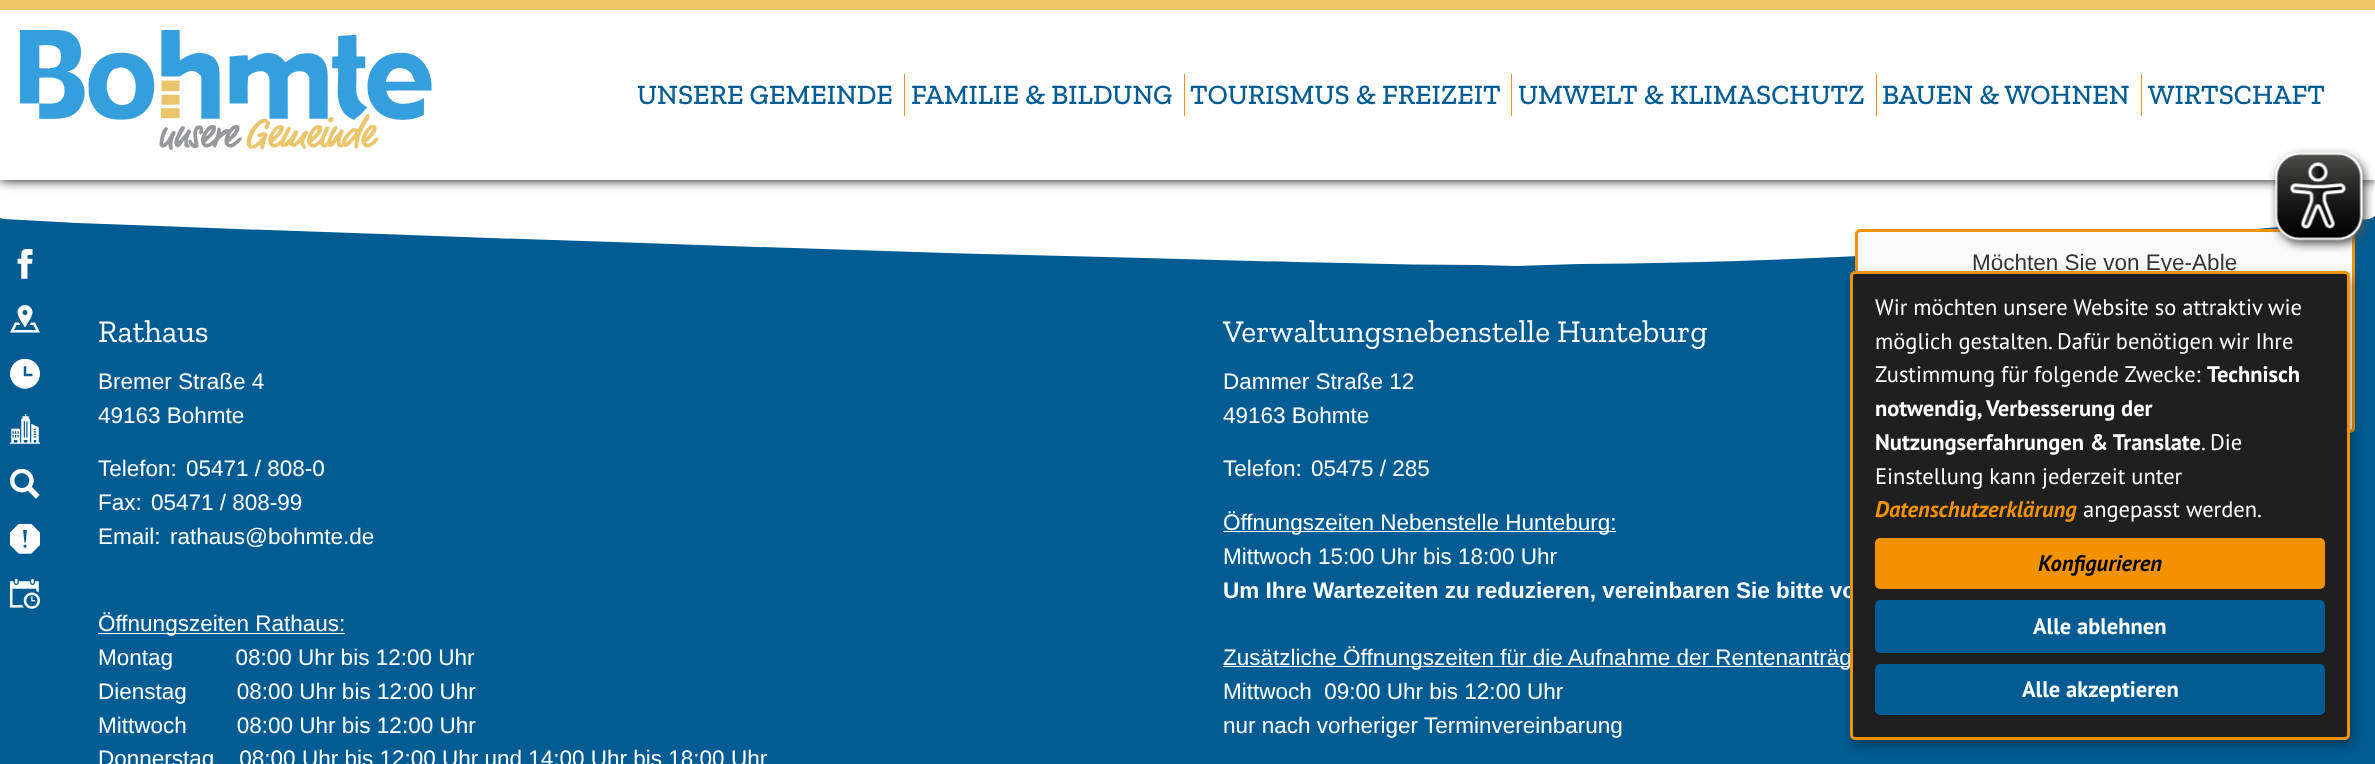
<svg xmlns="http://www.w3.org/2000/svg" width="2375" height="764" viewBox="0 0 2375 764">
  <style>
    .t1 { font: 500 28px Zilla Slab; fill: #025c94; }
    .t2 { font: 31.5px Zilla Slab; fill: #fff; }
    .t3 { font: 22.5px Liberation Sans; fill: #fff; }
    .t4 { font: bold 22.5px Liberation Sans; fill: #fff; }
    .t5 { font: 22.5px Liberation Sans; fill: #333; }
    .t6 { font: 22.5px PT Sans; fill: #fff; }
    .t7 { font: bold 22.5px PT Sans; fill: #fff; }
    .t8 { font: italic bold 22.5px PT Sans; fill: #f39200; }
    .t9 { font: italic bold 22.5px PT Sans; fill: #000; }
  </style>
  <rect width="100%" height="100%" fill="#fff"/>
  <rect x="0" y="0" width="2375" height="180" fill="#000" filter="blur(6px)"/>
  <rect x="0" y="10" width="2375" height="170" fill="#fff"/>
  <rect x="0" y="0" width="2375" height="10" fill="#eec468"/>
  <image x="20" y="30" width="412" height="120" href="images/1.png"/>
  <text x="637" y="104" class="t1">UNSERE GEMEINDE</text>
  <rect x="904" y="74" width="1" height="42" fill="#f39200"/>
  <text x="911" y="104" class="t1">FAMILIE &amp; BILDUNG</text>
  <rect x="1184" y="74" width="1" height="42" fill="#f39200"/>
  <text x="1190" y="104" class="t1">TOURISMUS &amp; FREIZEIT</text>
  <rect x="1511" y="74" width="1" height="42" fill="#f39200"/>
  <text x="1518" y="104" class="t1">UMWELT &amp; KLIMASCHUTZ</text>
  <rect x="1876" y="74" width="1" height="42" fill="#f39200"/>
  <text x="1882" y="104" class="t1">BAUEN &amp; WOHNEN</text>
  <rect x="2141" y="74" width="1" height="42" fill="#f39200"/>
  <text x="2148" y="104" class="t1">WIRTSCHAFT</text>
  <rect x="0" y="216" width="2375" height="548" fill="#025c94"/>
  <path d="M0 218V216C0 215 5 215 6 215H2375C2374 218 2371 218 2369 219C2328 223 2287 226 2246 230C2168 237 2089 242 2010 247C1867 257 1723 263 1579 264L1516 266L1479 265C1434 265 1389 264 1345 263L1295 262C1179 259 1063 256 947 253C657 244 367 234 77 223L4 219Z" fill="#fff" fill-rule="evenodd"/>
  <image x="17" y="249" width="16" height="30" href="images/2.png"/>
  <image x="10" y="305" width="30" height="28" href="images/3.png"/>
  <image x="10" y="359" width="30" height="30" href="images/4.png"/>
  <image x="10" y="414" width="30" height="30" href="images/5.png"/>
  <image x="10" y="469" width="30" height="30" href="images/6.png"/>
  <image x="10" y="524" width="30" height="30" href="images/7.png"/>
  <image x="10" y="579" width="30" height="30" href="images/8.png"/>
  <text x="98" y="342" class="t2">Rathaus</text>
  <text x="98" y="389" class="t3">Bremer Straße 4</text>
  <text x="98" y="423" class="t3">49163 Bohmte</text>
  <text x="98" y="476" class="t3">Telefon:</text>
  <text x="186" y="476" class="t3">05471 / 808-0</text>
  <text x="98" y="510" class="t3">Fax:</text>
  <text x="151" y="510" class="t3">05471 / 808-99</text>
  <text x="98" y="544" class="t3">Email:</text>
  <text x="170" y="544" class="t3">rathaus@bohmte.de</text>
  <rect x="98" y="633" width="247" height="1" fill="#fff"/>
  <text x="98" y="631" class="t3">Öffnungszeiten Rathaus:</text>
  <text x="98" y="665" class="t3" xml:space="preserve">Montag          08:00 Uhr bis 12:00 Uhr</text>
  <text x="98" y="699" class="t3" xml:space="preserve">Dienstag        08:00 Uhr bis 12:00 Uhr</text>
  <text x="98" y="733" class="t3" xml:space="preserve">Mittwoch        08:00 Uhr bis 12:00 Uhr</text>
  <text x="98" y="766" class="t3" xml:space="preserve">Donnerstag    08:00 Uhr bis 12:00 Uhr und 14:00 Uhr bis 18:00 Uhr</text>
  <text x="1223" y="342" class="t2">Verwaltungsnebenstelle Hunteburg</text>
  <text x="1223" y="389" class="t3">Dammer Straße 12</text>
  <text x="1223" y="423" class="t3">49163 Bohmte</text>
  <text x="1223" y="476" class="t3">Telefon:</text>
  <text x="1311" y="476" class="t3">05475 / 285</text>
  <rect x="1223" y="531" width="393" height="1" fill="#fff"/>
  <text x="1223" y="530" class="t3">Öffnungszeiten Nebenstelle Hunteburg:</text>
  <text x="1223" y="564" class="t3">Mittwoch 15:00 Uhr bis 18:00 Uhr</text>
  <text x="1223" y="598" class="t4">Um Ihre Wartezeiten zu reduzieren, vereinbaren Sie bitte vo</text>
  <rect x="1223" y="666" width="627" height="1" fill="#fff"/>
  <text x="1223" y="665" class="t3">Zusätzliche Öffnungszeiten für die Aufnahme der Rentenanträg</text>
  <text x="1223" y="699" class="t3" xml:space="preserve">Mittwoch  09:00 Uhr bis 12:00 Uhr</text>
  <text x="1223" y="733" class="t3">nur nach vorheriger Terminvereinbarung</text>
  <rect x="1856.5" y="230.5" width="497" height="201" rx="3.5" fill="#fafafa" stroke="#f39200" stroke-width="3"/>
  <image x="2269" y="148" width="105" height="104" href="images/9.png"/>
  <text x="1972" y="270" class="t5">Möchten Sie von Eye-Able</text>
  <rect x="1856" y="278" width="500" height="468" rx="5" fill="#00000030" filter="blur(6px)"/>
  <rect x="1850" y="276" width="500" height="469" rx="5" fill="#00000033" filter="blur(4px)"/>
  <rect x="1851.5" y="272.5" width="497" height="466" rx="3.5" fill="#1f1f1f" stroke="#f39200" stroke-width="3"/>
  <text x="1875" y="315" class="t6">Wir möchten unsere Website so attraktiv wie</text>
  <text x="1875" y="349" class="t6">möglich gestalten. Dafür benötigen wir Ihre</text>
  <text x="1875" y="382" class="t6">Zustimmung für folgende Zwecke:</text>
  <text x="2207" y="382" class="t7">Technisch</text>
  <text x="1875" y="416" class="t7">notwendig, Verbesserung der</text>
  <text x="1875" y="450" class="t7">Nutzungserfahrungen &amp; Translate</text>
  <text x="2201" y="450" class="t6">. Die</text>
  <text x="1875" y="484" class="t6">Einstellung kann jederzeit unter</text>
  <text x="1875" y="517" class="t8">Datenschutzerklärung</text>
  <text x="2083" y="517" class="t6">angepasst werden.</text>
  <rect x="1875" y="538" width="450" height="51" rx="5" fill="#f39200"/>
  <text x="2038" y="571" class="t9">Konfigurieren</text>
  <rect x="1875" y="600" width="450" height="53" rx="5" fill="#025c94"/>
  <text x="2033" y="634" class="t7">Alle ablehnen</text>
  <rect x="1875" y="664" width="450" height="51" rx="5" fill="#025c94"/>
  <text x="2022" y="697" class="t7">Alle akzeptieren</text>
</svg>
